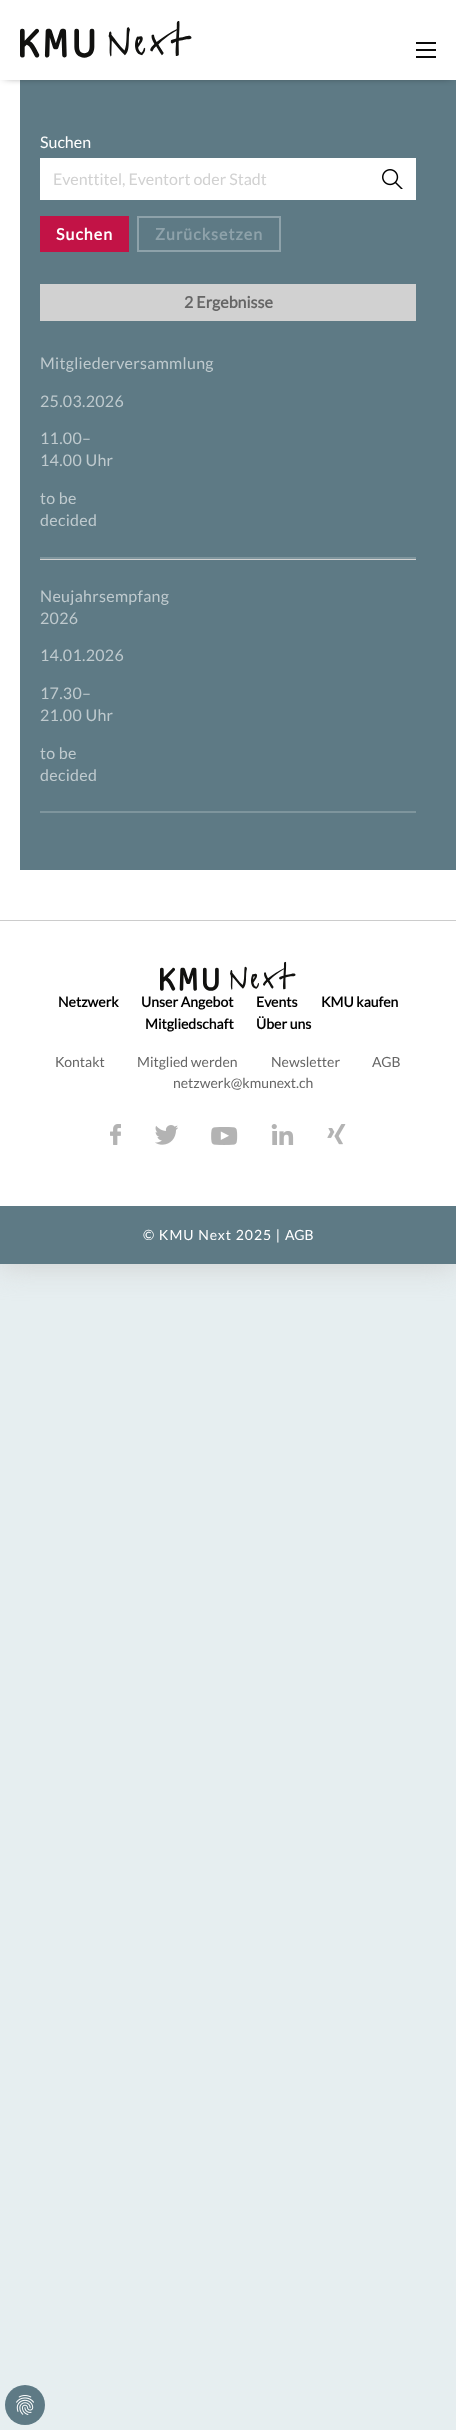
<svg xmlns="http://www.w3.org/2000/svg" width="456" height="2430" viewBox="0 0 456 2430">
  <style>
    .t1 { font: 16px Lato; fill: #fff; }
    .t2 { font: 16px Lato; fill: #d1d1d1; }
    .t3 { font: bold 16px Lato; letter-spacing: 1px; fill: #fff; }
    .t4 { font: bold 16px Lato; letter-spacing: 1px; fill: #8ea2aa; }
    .t5 { font: bold 16px Lato; fill: #666; }
    .t6 { font: 16px Lato; letter-spacing: 0.3px; fill: #bfcace; }
    .t7 { font: bold 14px Lato; fill: #000; }
    .t8 { font: 14px Lato; fill: #666; }
    .t9 { font: 14px Lato; letter-spacing: 1px; fill: #fff; }
    .t10 { font: 14px Lato; fill: #fff; }
  </style>
  <rect width="100%" height="100%" fill="#e6eef0"/>
  <rect x="-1" y="79" width="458" height="1186" fill="#cecece" filter="blur(15px)"/>
  <rect x="0" y="80" width="456" height="1126" fill="#fff"/>
  <rect x="20" y="80" width="436" height="790" fill="#5e7a85"/>
  <rect x="5" y="5" width="446" height="70" fill="#000" filter="blur(5px)"/>
  <rect x="0" y="0" width="456" height="80" fill="#fff"/>
  <image x="20" y="21" width="172" height="37" href="images/1.png"/>
  <rect x="416" y="42" width="20" height="2" fill="#0a0a0a"/>
  <rect x="416" y="49" width="20" height="2" fill="#0a0a0a"/>
  <rect x="416" y="56" width="20" height="2" fill="#0a0a0a"/>
  <text x="40" y="148" class="t1">Suchen</text>
  <rect x="40" y="158" width="376" height="42" fill="#fff"/>
  <image x="382" y="169" width="21" height="20" href="images/2.png"/>
  <text x="53" y="185" class="t2">Eventtitel, Eventort oder Stadt</text>
  <rect x="40" y="216" width="89" height="36" fill="#c21346"/>
  <text x="56" y="240" class="t3">Suchen</text>
  <rect x="138" y="217" width="142" height="34" fill="none" stroke="#8ea2aa" stroke-width="2"/>
  <text x="155" y="240" class="t4">Zurücksetzen</text>
  <rect x="40" y="284" width="376" height="37" fill="#d1d1d1"/>
  <text x="184" y="308" class="t5">2 Ergebnisse</text>
  <rect x="40" y="557" width="376" height="2" fill="#7e959d"/>
  <text x="40" y="369" class="t6">Mitgliederversammlung</text>
  <text x="40" y="407" class="t6">25.03.2026</text>
  <text x="40" y="444" class="t6">11.00–</text>
  <text x="40" y="466" class="t6">14.00 Uhr</text>
  <text x="40" y="504" class="t6">to be</text>
  <text x="40" y="526" class="t6">decided</text>
  <rect x="40" y="559" width="376" height="1" fill="#d1d1d1"/>
  <rect x="40" y="811" width="376" height="2" fill="#7e959d"/>
  <text x="40" y="602" class="t6">Neujahrsempfang</text>
  <text x="40" y="624" class="t6">2026</text>
  <text x="40" y="661" class="t6">14.01.2026</text>
  <text x="40" y="699" class="t6">17.30–</text>
  <text x="40" y="721" class="t6">21.00 Uhr</text>
  <text x="40" y="759" class="t6">to be</text>
  <text x="40" y="781" class="t6">decided</text>
  <rect x="0" y="920" width="456" height="1" fill="#ccc"/>
  <image x="160" y="961" width="136" height="30" href="images/3.png"/>
  <text x="58" y="1007" class="t7">Netzwerk</text>
  <text x="141" y="1007" class="t7">Unser Angebot</text>
  <text x="256" y="1007" class="t7">Events</text>
  <text x="321" y="1007" class="t7">KMU kaufen</text>
  <text x="145" y="1029" class="t7">Mitgliedschaft</text>
  <text x="256" y="1029" class="t7">Über uns</text>
  <text x="55" y="1067" class="t8">Kontakt</text>
  <text x="137" y="1067" class="t8">Mitglied werden</text>
  <text x="271" y="1067" class="t8">Newsletter</text>
  <text x="372" y="1067" class="t8">AGB</text>
  <text x="173" y="1088" class="t8">netzwerk@kmunext.ch</text>
  <image x="110" y="1124" width="11" height="21" href="images/4.png"/>
  <image x="155" y="1125" width="23" height="20" href="images/5.png"/>
  <image x="211" y="1127" width="27" height="18" href="images/6.png"/>
  <image x="271" y="1124" width="23" height="21" href="images/7.png"/>
  <image x="327" y="1124" width="19" height="21" href="images/8.png"/>
  <rect x="0" y="1206" width="456" height="58" fill="#5e7a85"/>
  <text x="143" y="1240" class="t9">© KMU Next 2025 |</text>
  <text x="285" y="1240" class="t10">AGB</text>
  <circle cx="25" cy="2405" r="20" fill="#5e7a85"/>
  <image x="16" y="2395" width="18" height="20" href="images/9.png"/>
</svg>
